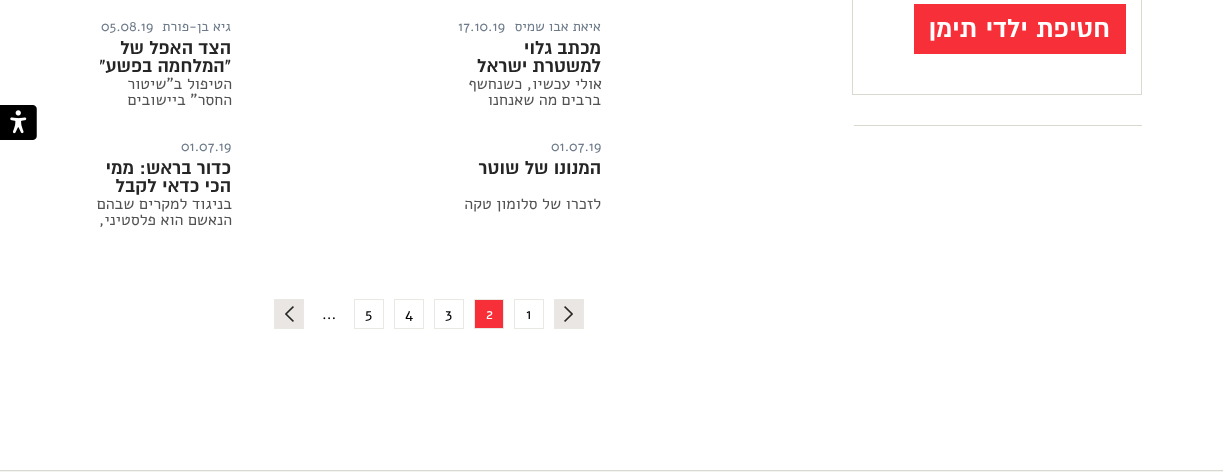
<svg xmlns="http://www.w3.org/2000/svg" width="1223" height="472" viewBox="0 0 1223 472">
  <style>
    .t1 { font: 25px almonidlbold; direction: rtl; fill: #fff; }
    .t2 { font: 14px Alef; direction: rtl; fill: #6c7a89; }
    .t3 { font: 14px Alef; fill: #6c7a89; }
    .t4 { font: 18px almonidlbold; direction: rtl; fill: #252525; }
    .t5 { font: 16px Alef; direction: rtl; fill: #525252; }
    .t6 { font: 15px Alef; fill: #000; }
    .t7 { font: 15px Alef; fill: #fff; }
  </style>
  <rect width="100%" height="100%" fill="#fff"/>
  <rect x="852.5" y="-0.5" width="289" height="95" fill="none" stroke="#dad9cf"/>
  <rect x="914" y="4" width="212" height="50" fill="#f72f39"/>
  <text x="1110" y="37" word-spacing="1" class="t1">חטיפת ילדי תימן</text>
  <rect x="854" y="125" width="288" height="1" fill="#dad9cf"/>
  <text x="601" y="31" class="t2">איאת אבו שמיס</text>
  <text x="458" y="31" class="t3">17.10.19</text>
  <text x="601" y="54" class="t4">מכתב גלוי</text>
  <text x="601" y="72" class="t4">למשטרת ישראל</text>
  <text x="602" y="89" class="t5">אולי עכשיו, כשנחשף</text>
  <text x="601" y="105" class="t5">ברבים מה שאנחנו</text>
  <text x="231" y="31" class="t2">גיא בן-פורת</text>
  <text x="101" y="31" class="t3">05.08.19</text>
  <text x="231" y="54" class="t4">הצד האפל של</text>
  <text x="231" y="72" class="t4">"המלחמה בפשע"</text>
  <text x="232" y="89" class="t5">הטיפול ב”שיטור</text>
  <text x="232" y="105" class="t5">החסר” ביישובים</text>
  <text x="551" y="151" class="t3">01.07.19</text>
  <text x="601" y="174" class="t4">המנונו של שוטר</text>
  <text x="601" y="209" class="t5">לזכרו של סלומון טקה</text>
  <text x="181" y="151" class="t3">01.07.19</text>
  <text x="231" y="174" class="t4">כדור בראש: ממי</text>
  <text x="231" y="192" class="t4">הכי כדאי לקבל</text>
  <text x="232" y="209" class="t5">בניגוד למקרים שבהם</text>
  <text x="232" y="225" class="t5">הנאשם הוא פלסטיני,</text>
  <image x="554" y="299" width="30" height="30" href="images/1.png"/>
  <rect x="514.5" y="299.5" width="29" height="29" fill="none" stroke="#e9e8e2"/>
  <text x="526" y="319" class="t6">1</text>
  <rect x="474.5" y="299.5" width="29" height="29" fill="#f72f39" stroke="#e9e8e2"/>
  <text x="486" y="319" class="t7">2</text>
  <rect x="434.5" y="299.5" width="29" height="29" fill="none" stroke="#e9e8e2"/>
  <text x="445" y="319" class="t6">3</text>
  <rect x="394.5" y="299.5" width="29" height="29" fill="none" stroke="#e9e8e2"/>
  <text x="405" y="319" class="t6">4</text>
  <rect x="354.5" y="299.5" width="29" height="29" fill="none" stroke="#e9e8e2"/>
  <text x="365" y="319" class="t6">5</text>
  <text x="322" y="319" class="t6">...</text>
  <image x="274" y="299" width="30" height="30" href="images/2.png"/>
  <image x="0" y="105" width="37" height="35" href="images/3.png"/>
  <rect x="0" y="471" width="1223" height="1" fill="#f3f3f3"/>
  <rect x="0" y="470" width="1223" height="1" fill="#dad9cf"/>
</svg>
